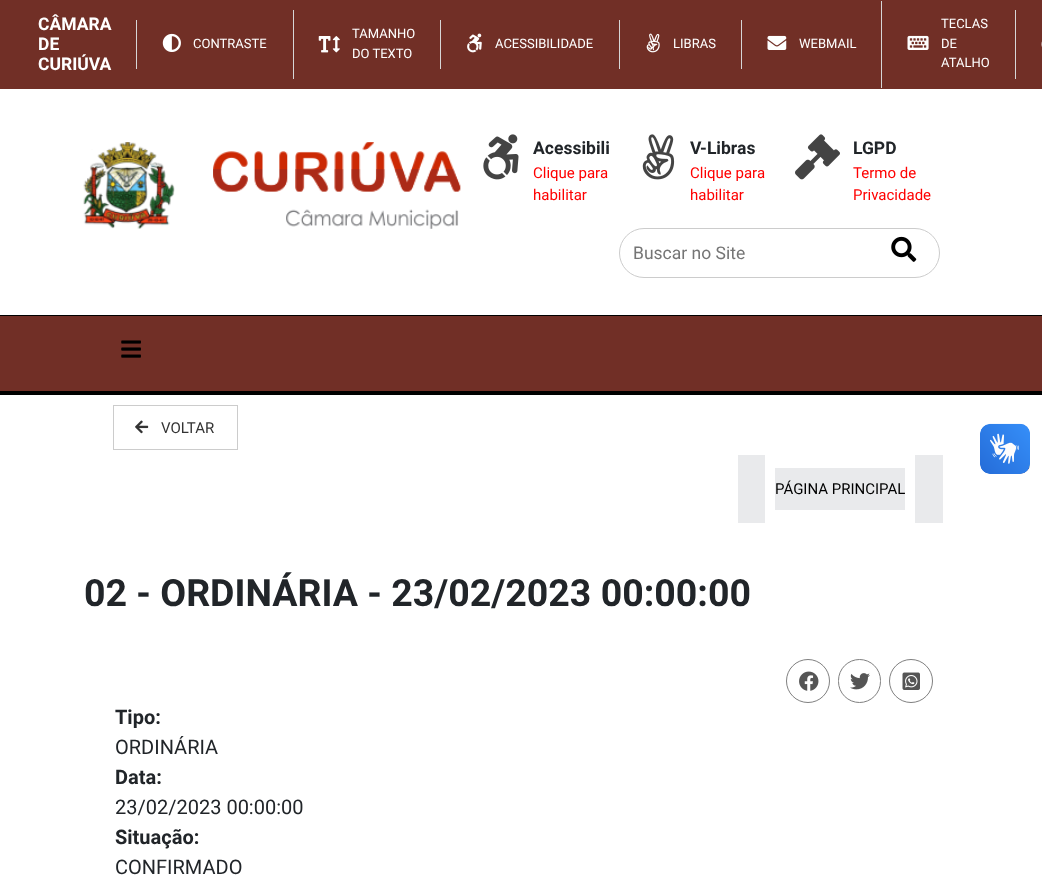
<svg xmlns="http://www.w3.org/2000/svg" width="1042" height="896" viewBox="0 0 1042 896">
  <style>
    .t1 { font: bold 17.5px Roboto; fill: #fff; }
    .t2 { font: 13px Roboto; fill: #fff; }
    .t3 { font: bold 17.5px Roboto; fill: #212529; }
    .t4 { font: 15px Roboto; fill: #f00; }
    .t5 { font: 17.5px Roboto; fill: #757575; }
    .t6 { font: 15px Roboto; fill: #333; }
    .t7 { font: 15px Roboto; fill: #000; }
    .t8 { font: bold 37.5px Roboto; fill: #212529; }
    .t9 { font: bold 20px Roboto; fill: #212529; }
    .t10 { font: 20px Roboto; fill: #212529; }
  </style>
  <rect width="100%" height="100%" fill="#fff"/>
  <rect x="0" y="0" width="1042" height="89" fill="#712f26"/>
  <text x="38" y="30" class="t1">CÂMARA</text>
  <text x="38" y="50" class="t1">DE</text>
  <text x="38" y="70" class="t1">CURIÚVA</text>
  <rect x="136" y="20" width="1" height="49" fill="#d6d6d6"/>
  <image x="162" y="33" width="19" height="19" href="images/1.png"/>
  <text x="193" y="48" class="t2">CONTRASTE</text>
  <rect x="293" y="10" width="1" height="69" fill="#d6d6d6"/>
  <text x="352" y="38" class="t2">TAMANHO</text>
  <image x="318" y="36" width="22" height="17" href="images/2.png"/>
  <text x="352" y="58" class="t2">DO TEXTO</text>
  <rect x="440" y="20" width="1" height="49" fill="#d6d6d6"/>
  <image x="467" y="33" width="15" height="20" href="images/3.png"/>
  <text x="495" y="48" class="t2">ACESSIBILIDADE</text>
  <rect x="619" y="20" width="1" height="49" fill="#d6d6d6"/>
  <image x="646" y="33" width="14" height="20" href="images/4.png"/>
  <text x="673" y="48" class="t2">LIBRAS</text>
  <rect x="741" y="20" width="1" height="49" fill="#d6d6d6"/>
  <image x="767" y="35" width="20" height="15" href="images/5.png"/>
  <text x="799" y="48" class="t2">WEBMAIL</text>
  <rect x="881" y="1" width="1" height="87" fill="#d6d6d6"/>
  <text x="941" y="28" class="t2">TECLAS</text>
  <image x="907" y="35" width="22" height="15" href="images/6.png"/>
  <text x="941" y="48" class="t2">DE</text>
  <text x="941" y="67" class="t2">ATALHO</text>
  <rect x="1015" y="10" width="1" height="69" fill="#d6d6d6"/>
  <image x="1041" y="41" width="1" height="6" href="images/7.png"/>
  <image x="83" y="142" width="378" height="87" href="images/8.png"/>
  <image x="483" y="134" width="36" height="46" href="images/9.png"/>
  <text x="533" y="154" class="t3">Acessibili</text>
  <text x="533" y="178" class="t4">Clique para</text>
  <text x="533" y="200" class="t4">habilitar</text>
  <image x="642" y="134" width="33" height="46" href="images/10.png"/>
  <text x="690" y="154" class="t3">V-Libras</text>
  <text x="690" y="178" class="t4">Clique para</text>
  <text x="690" y="200" class="t4">habilitar</text>
  <image x="795" y="134" width="45" height="46" href="images/11.png"/>
  <text x="853" y="154" class="t3">LGPD</text>
  <text x="853" y="178" class="t4">Termo de</text>
  <text x="853" y="200" class="t4">Privacidade</text>
  <rect x="619.5" y="228.5" width="320" height="49" rx="24.5" fill="none" stroke="#ccc"/>
  <text x="633" y="259" class="t5">Buscar no Site</text>
  <image x="891" y="236" width="26" height="26" href="images/12.png"/>
  <rect x="0" y="316" width="1042" height="75" fill="#712f26"/>
  <rect x="0" y="315" width="1042" height="1" fill="#000"/>
  <rect x="0" y="391" width="1042" height="4" fill="#000"/>
  <image x="121" y="340" width="20" height="18" href="images/13.png"/>
  <image x="980" y="423" width="50" height="51" href="images/14.png"/>
  <image x="980" y="424" width="50" height="50" href="images/15.png"/>
  <rect x="113.5" y="405.5" width="124" height="44" fill="none" stroke="#ccc"/>
  <image x="135" y="420" width="14" height="14" href="images/16.png"/>
  <text x="161" y="433" class="t6">VOLTAR</text>
  <rect x="775" y="468" width="130" height="42" fill="#e9eaec"/>
  <text x="775" y="494" class="t7">PÁGINA PRINCIPAL</text>
  <rect x="738" y="455" width="27" height="68" fill="#e9eaec"/>
  <rect x="915" y="455" width="28" height="68" fill="#e9eaec"/>
  <text x="84" y="606" class="t8">02 - ORDINÁRIA - 23/02/2023 00:00:00</text>
  <circle cx="808" cy="681" r="21.5" fill="none" stroke="#808080"/>
  <image x="799" y="671" width="20" height="20" href="images/17.png"/>
  <rect x="838.5" y="659.5" width="42" height="43" rx="21" fill="none" stroke="#808080"/>
  <image x="850" y="673" width="20" height="17" href="images/18.png"/>
  <circle cx="911" cy="681" r="21.5" fill="none" stroke="#808080"/>
  <image x="902" y="672" width="18" height="18" href="images/19.png"/>
  <text x="115" y="724" class="t9">Tipo:</text>
  <text x="115" y="754" class="t10">ORDINÁRIA</text>
  <text x="115" y="784" class="t9">Data:</text>
  <text x="115" y="814" class="t10">23/02/2023 00:00:00</text>
  <text x="115" y="844" class="t9">Situação:</text>
  <text x="115" y="874" class="t10">CONFIRMADO</text>
</svg>
